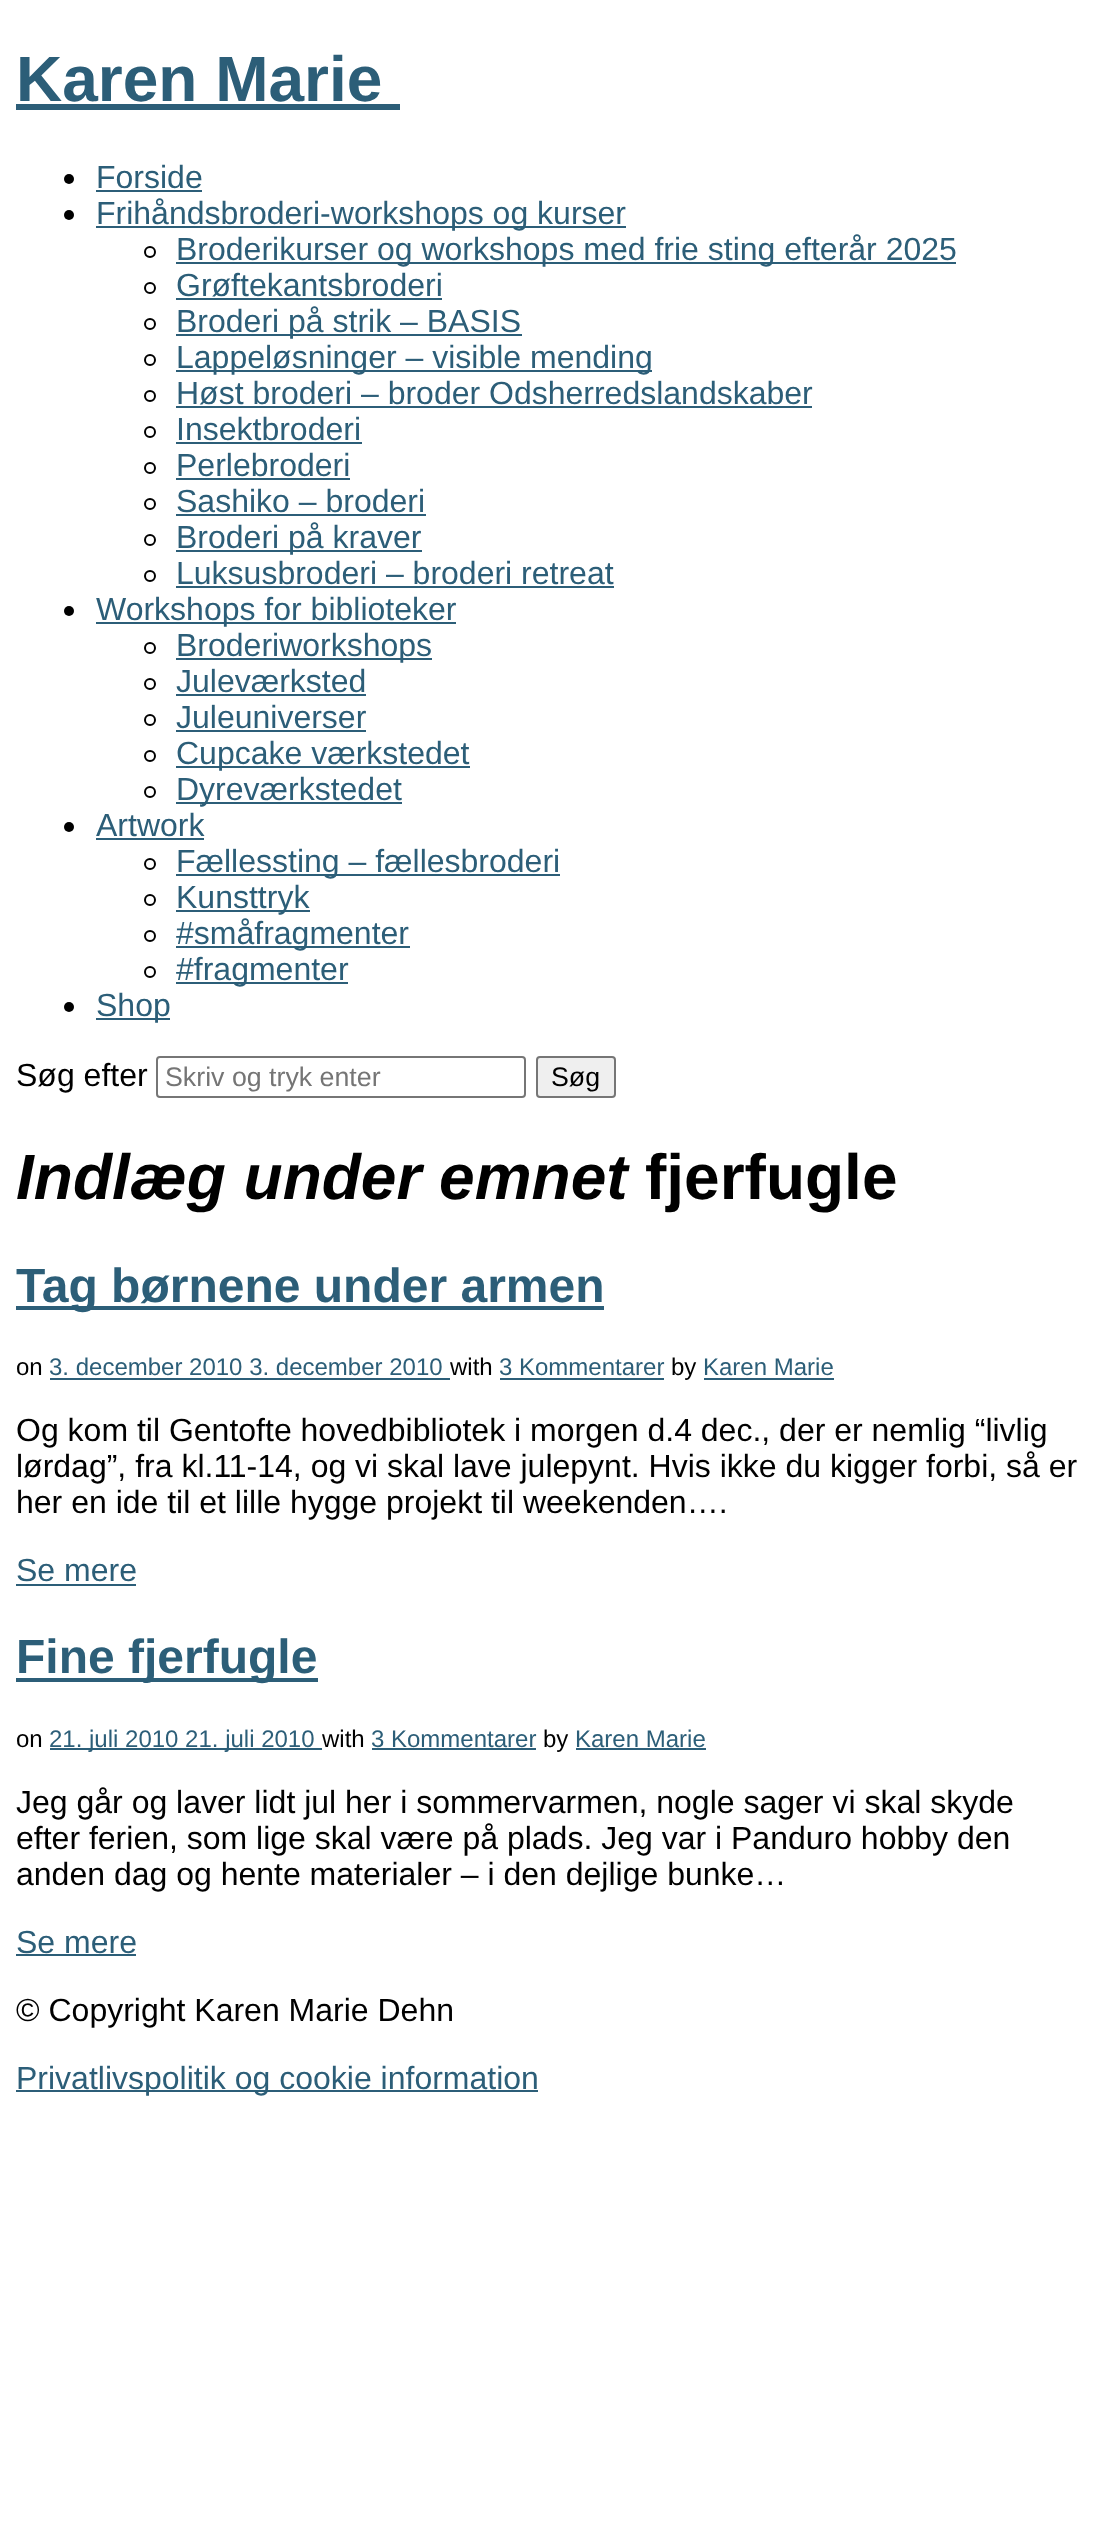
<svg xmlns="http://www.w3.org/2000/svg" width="1099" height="2540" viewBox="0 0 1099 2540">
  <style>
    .t1 { font: bold 64px Liberation Sans; fill: #2c5e78; }
    .t2 { font: 32px Liberation Sans; fill: #2c5e78; }
    .t3 { font: 32px Liberation Sans; fill: #000; }
    .t4 { font: 26.75px Liberation Sans; fill: #757575; }
    .t5 { font: 26.75px Liberation Sans; fill: #000; }
    .t6 { font: italic bold 64px Liberation Sans; fill: #000; }
    .t7 { font: bold 64px Liberation Sans; fill: #000; }
    .t8 { font: bold 48px Liberation Sans; fill: #2c5e78; }
    .t9 { font: 24px Liberation Sans; fill: #000; }
    .t10 { font: 24px Liberation Sans; fill: #2c5e78; }
  </style>
  <rect width="100%" height="100%" fill="#fff"/>
  <text x="16" y="101" class="t1">Karen Marie</text>
  <rect x="16" y="104" width="384" height="6" fill="#2c5e78"/>
  <circle cx="69" cy="179" r="5" fill="#000"/>
  <text x="96" y="188" class="t2">Forside</text>
  <rect x="96" y="190" width="106" height="2" fill="#2c5e78"/>
  <circle cx="69" cy="215" r="5" fill="#000"/>
  <rect x="96" y="226" width="530" height="2" fill="#2c5e78"/>
  <text x="96" y="224" class="t2">Frihåndsbroderi-workshops og kurser</text>
  <circle cx="150" cy="252" r="5" fill="none" stroke="#000" stroke-width="2"/>
  <rect x="176" y="262" width="780" height="2" fill="#2c5e78"/>
  <text x="176" y="260" class="t2">Broderikurser og workshops med frie sting efterår 2025</text>
  <circle cx="150" cy="288" r="5" fill="none" stroke="#000" stroke-width="2"/>
  <text x="176" y="296" class="t2">Grøftekantsbroderi</text>
  <rect x="176" y="298" width="266" height="2" fill="#2c5e78"/>
  <circle cx="150" cy="324" r="5" fill="none" stroke="#000" stroke-width="2"/>
  <rect x="176" y="334" width="346" height="2" fill="#2c5e78"/>
  <text x="176" y="332" class="t2">Broderi på strik – BASIS</text>
  <circle cx="150" cy="360" r="5" fill="none" stroke="#000" stroke-width="2"/>
  <rect x="176" y="370" width="476" height="2" fill="#2c5e78"/>
  <text x="176" y="368" class="t2">Lappeløsninger – visible mending</text>
  <circle cx="150" cy="396" r="5" fill="none" stroke="#000" stroke-width="2"/>
  <text x="176" y="404" class="t2">Høst broderi – broder Odsherredslandskaber</text>
  <rect x="176" y="406" width="636" height="2" fill="#2c5e78"/>
  <circle cx="150" cy="432" r="5" fill="none" stroke="#000" stroke-width="2"/>
  <text x="176" y="440" class="t2">Insektbroderi</text>
  <rect x="176" y="442" width="186" height="2" fill="#2c5e78"/>
  <circle cx="150" cy="468" r="5" fill="none" stroke="#000" stroke-width="2"/>
  <text x="176" y="476" class="t2">Perlebroderi</text>
  <rect x="176" y="478" width="174" height="2" fill="#2c5e78"/>
  <circle cx="150" cy="504" r="5" fill="none" stroke="#000" stroke-width="2"/>
  <text x="176" y="512" class="t2">Sashiko – broderi</text>
  <rect x="176" y="514" width="250" height="2" fill="#2c5e78"/>
  <circle cx="150" cy="540" r="5" fill="none" stroke="#000" stroke-width="2"/>
  <rect x="176" y="550" width="246" height="2" fill="#2c5e78"/>
  <text x="176" y="548" class="t2">Broderi på kraver</text>
  <circle cx="150" cy="576" r="5" fill="none" stroke="#000" stroke-width="2"/>
  <text x="176" y="584" class="t2">Luksusbroderi – broderi retreat</text>
  <rect x="176" y="586" width="438" height="2" fill="#2c5e78"/>
  <circle cx="69" cy="611" r="5" fill="#000"/>
  <rect x="96" y="622" width="360" height="2" fill="#2c5e78"/>
  <text x="96" y="620" class="t2">Workshops for biblioteker</text>
  <circle cx="150" cy="648" r="5" fill="none" stroke="#000" stroke-width="2"/>
  <rect x="176" y="658" width="256" height="2" fill="#2c5e78"/>
  <text x="176" y="656" class="t2">Broderiworkshops</text>
  <circle cx="150" cy="684" r="5" fill="none" stroke="#000" stroke-width="2"/>
  <text x="176" y="692" class="t2">Juleværksted</text>
  <rect x="176" y="694" width="190" height="2" fill="#2c5e78"/>
  <circle cx="150" cy="720" r="5" fill="none" stroke="#000" stroke-width="2"/>
  <text x="176" y="728" class="t2">Juleuniverser</text>
  <rect x="176" y="730" width="190" height="2" fill="#2c5e78"/>
  <circle cx="150" cy="756" r="5" fill="none" stroke="#000" stroke-width="2"/>
  <rect x="176" y="766" width="294" height="2" fill="#2c5e78"/>
  <text x="176" y="764" class="t2">Cupcake værkstedet</text>
  <circle cx="150" cy="792" r="5" fill="none" stroke="#000" stroke-width="2"/>
  <rect x="176" y="802" width="226" height="2" fill="#2c5e78"/>
  <text x="176" y="800" class="t2">Dyreværkstedet</text>
  <circle cx="69" cy="827" r="5" fill="#000"/>
  <text x="96" y="836" class="t2">Artwork</text>
  <rect x="96" y="838" width="108" height="2" fill="#2c5e78"/>
  <circle cx="150" cy="864" r="5" fill="none" stroke="#000" stroke-width="2"/>
  <rect x="176" y="874" width="384" height="2" fill="#2c5e78"/>
  <text x="176" y="872" class="t2">Fællessting – fællesbroderi</text>
  <circle cx="150" cy="900" r="5" fill="none" stroke="#000" stroke-width="2"/>
  <rect x="176" y="910" width="134" height="2" fill="#2c5e78"/>
  <text x="176" y="908" class="t2">Kunsttryk</text>
  <circle cx="150" cy="936" r="5" fill="none" stroke="#000" stroke-width="2"/>
  <rect x="176" y="946" width="234" height="2" fill="#2c5e78"/>
  <text x="176" y="944" class="t2">#småfragmenter</text>
  <circle cx="150" cy="972" r="5" fill="none" stroke="#000" stroke-width="2"/>
  <rect x="176" y="982" width="172" height="2" fill="#2c5e78"/>
  <text x="176" y="980" class="t2">#fragmenter</text>
  <circle cx="69" cy="1007" r="5" fill="#000"/>
  <rect x="96" y="1018" width="74" height="2" fill="#2c5e78"/>
  <text x="96" y="1016" class="t2">Shop</text>
  <text x="16" y="1086" class="t3">Søg efter</text>
  <rect x="157" y="1057" width="368" height="40" rx="3" fill="none" stroke="#767676" stroke-width="2"/>
  <text x="165" y="1086" class="t4">Skriv og tryk enter</text>
  <rect x="537" y="1057" width="78" height="40" rx="3" fill="#efefef" stroke="#767676" stroke-width="2"/>
  <text x="551" y="1086" class="t5">Søg</text>
  <text x="16" y="1199" class="t6">Indlæg under emnet</text>
  <text x="645" y="1199" class="t7">fjerfugle</text>
  <rect x="16" y="1306" width="588" height="4" fill="#2c5e78"/>
  <text x="16" y="1302" class="t8">Tag børnene under armen</text>
  <text x="16" y="1375" class="t9">on</text>
  <text x="49" y="1375" class="t10">3. december 2010 3. december 2010</text>
  <rect x="50" y="1378" width="400" height="2" fill="#2c5e78"/>
  <text x="450" y="1375" class="t9">with</text>
  <text x="499" y="1375" class="t10">3 Kommentarer</text>
  <rect x="500" y="1378" width="164" height="2" fill="#2c5e78"/>
  <text x="671" y="1375" class="t9">by</text>
  <text x="703" y="1375" class="t10">Karen Marie</text>
  <rect x="704" y="1378" width="130" height="2" fill="#2c5e78"/>
  <text x="16" y="1441" class="t3">Og kom til Gentofte hovedbibliotek i morgen d.4 dec., der er nemlig “livlig</text>
  <text x="16" y="1477" class="t3">lørdag”, fra kl.11-14, og vi skal lave julepynt. Hvis ikke du kigger forbi, så er</text>
  <text x="16" y="1513" class="t3">her en ide til et lille hygge projekt til weekenden….</text>
  <text x="16" y="1581" class="t2">Se mere</text>
  <rect x="16" y="1584" width="120" height="2" fill="#2c5e78"/>
  <rect x="16" y="1678" width="302" height="4" fill="#2c5e78"/>
  <text x="16" y="1673" class="t8">Fine fjerfugle</text>
  <text x="16" y="1747" class="t9">on</text>
  <rect x="50" y="1748" width="272" height="2" fill="#2c5e78"/>
  <text x="49" y="1747" class="t10">21. juli 2010 21. juli 2010</text>
  <text x="322" y="1747" class="t9">with</text>
  <text x="371" y="1747" class="t10">3 Kommentarer</text>
  <rect x="372" y="1748" width="164" height="2" fill="#2c5e78"/>
  <text x="543" y="1747" class="t9">by</text>
  <text x="575" y="1747" class="t10">Karen Marie</text>
  <rect x="576" y="1748" width="130" height="2" fill="#2c5e78"/>
  <text x="16" y="1813" class="t3">Jeg går og laver lidt jul her i sommervarmen, nogle sager vi skal skyde</text>
  <text x="16" y="1849" class="t3">efter ferien, som lige skal være på plads. Jeg var i Panduro hobby den</text>
  <text x="16" y="1885" class="t3">anden dag og hente materialer – i den dejlige bunke…</text>
  <text x="16" y="1953" class="t2">Se mere</text>
  <rect x="16" y="1954" width="120" height="2" fill="#2c5e78"/>
  <text x="16" y="2021" class="t3">© Copyright Karen Marie Dehn</text>
  <rect x="16" y="2090" width="522" height="2" fill="#2c5e78"/>
  <text x="16" y="2089" class="t2">Privatlivspolitik og cookie information</text>
</svg>
